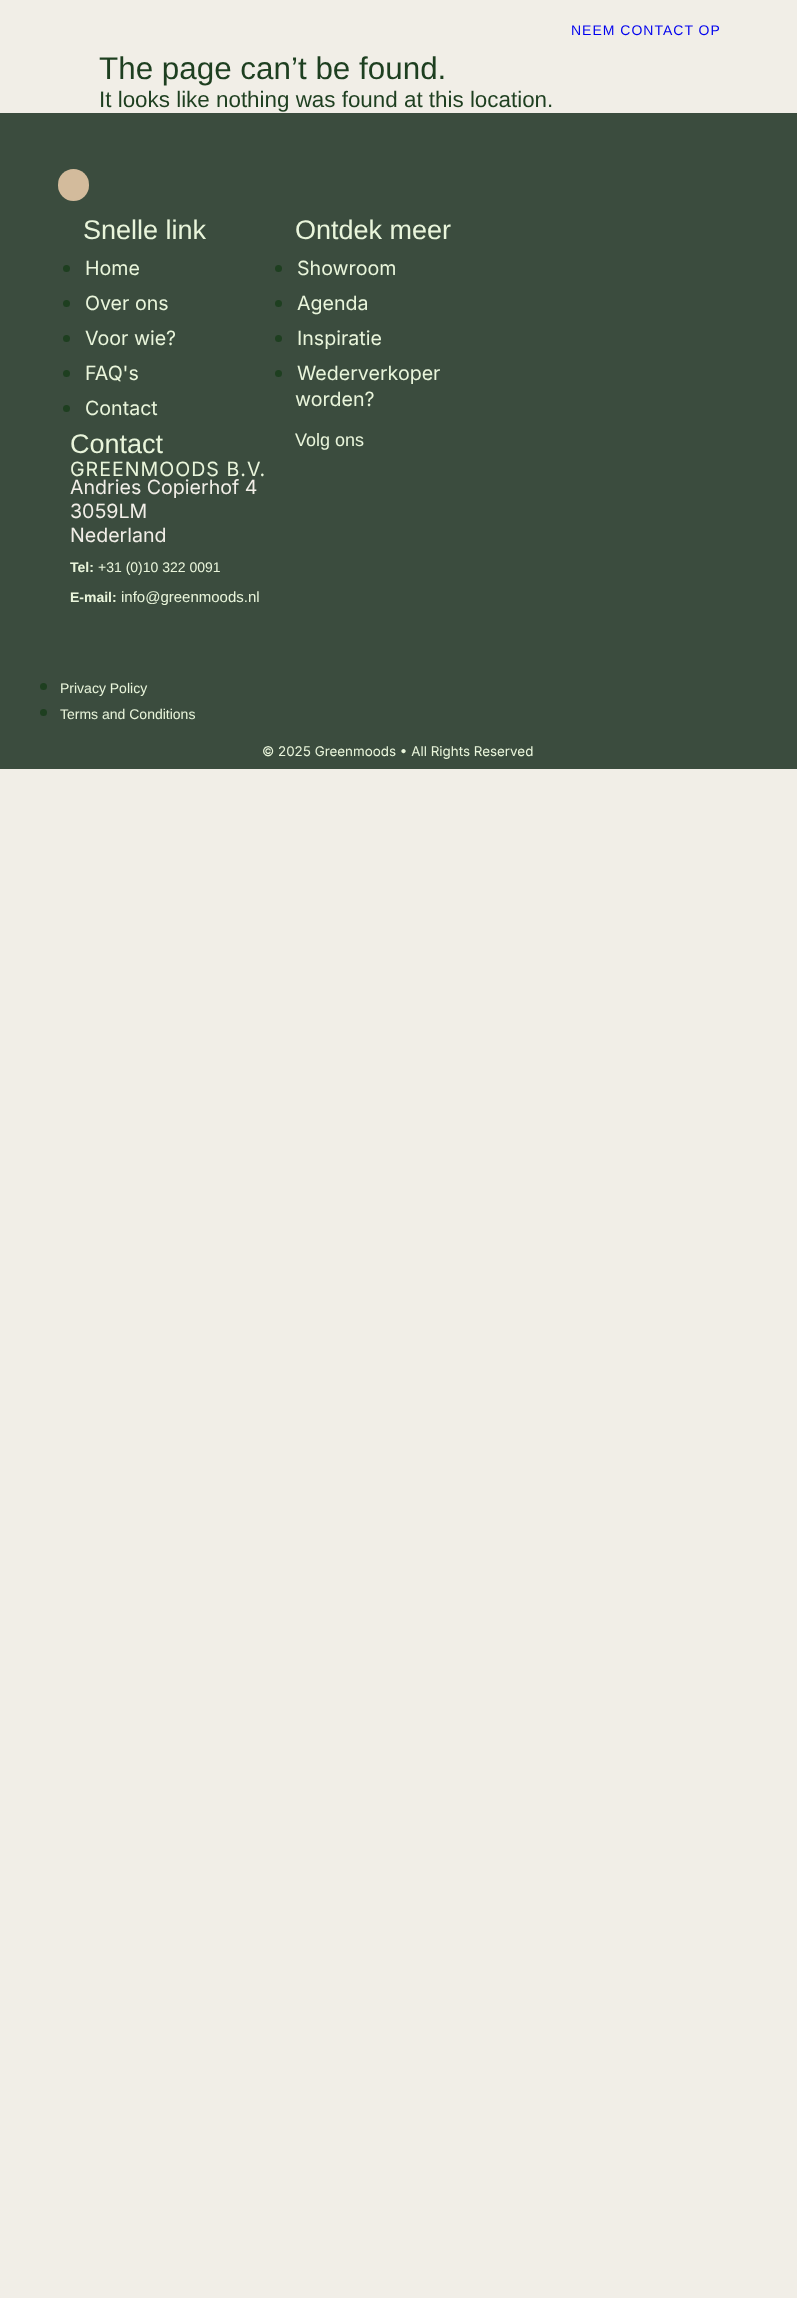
<svg xmlns="http://www.w3.org/2000/svg" width="797" height="2298" viewBox="0 0 797 2298">
  <style>
    .t1 { font: 14px Liberation Sans; letter-spacing: 1px; fill: #00e; }
    .t2 { font: 31.4px Liberation Sans; fill: #1e3f20; }
    .t3 { font: 22.4px Liberation Sans; fill: #1e3f20; }
    .t4 { font: 27px Liberation Sans; fill: #e9f5db; }
    .t5 { font: 19.6px Inter; fill: #e9f5db; }
    .t6 { font: 19.6px Inter; letter-spacing: 1px; fill: #e9f5db; }
    .t7 { font: 19.6px Inter; fill: #f1eee7; }
    .t8 { font: bold 14px Liberation Sans; fill: #e9f5db; }
    .t9 { font: 14px Liberation Sans; fill: #e9f5db; }
    .t10 { font: 15px Liberation Sans; fill: #e9f5db; }
    .t11 { font: 18px Liberation Sans; fill: #e9f5db; }
    .t12 { font: 13.4px Inter; fill: #e9f5db; }
  </style>
  <rect width="100%" height="100%" fill="#f1eee7"/>
  <text x="571" y="35" class="t1">NEEM CONTACT OP</text>
  <text x="99" y="79" class="t2">The page can’t be found.</text>
  <text x="99" y="107" class="t3">It looks like nothing was found at this location.</text>
  <rect x="0" y="113" width="797" height="656" fill="#3b4c3e"/>
  <rect x="58" y="169" width="31" height="32" rx="15.5" fill="#d3bb9c"/>
  <text x="83" y="239" class="t4">Snelle link</text>
  <circle cx="66.5" cy="268.5" r="3.5" fill="#1e3f20"/>
  <text x="85" y="275" class="t5">Home</text>
  <circle cx="66.5" cy="303.5" r="3.5" fill="#1e3f20"/>
  <text x="85" y="310" class="t5">Over ons</text>
  <circle cx="66.5" cy="338.5" r="3.5" fill="#1e3f20"/>
  <text x="85" y="345" class="t5">Voor wie?</text>
  <circle cx="66.5" cy="373.5" r="3.5" fill="#1e3f20"/>
  <text x="85" y="380" class="t5">FAQ's</text>
  <circle cx="66.5" cy="408.5" r="3.5" fill="#1e3f20"/>
  <text x="85" y="415" class="t5">Contact</text>
  <text x="295" y="239" class="t4">Ontdek meer</text>
  <circle cx="278.5" cy="268.5" r="3.5" fill="#1e3f20"/>
  <text x="297" y="275" class="t5">Showroom</text>
  <circle cx="278.5" cy="303.5" r="3.5" fill="#1e3f20"/>
  <text x="297" y="310" class="t5">Agenda</text>
  <circle cx="278.5" cy="338.5" r="3.5" fill="#1e3f20"/>
  <text x="297" y="345" class="t5">Inspiratie</text>
  <circle cx="278.5" cy="373.5" r="3.5" fill="#1e3f20"/>
  <text x="297" y="380" class="t5">Wederverkoper</text>
  <text x="295" y="406" class="t5">worden?</text>
  <text x="70" y="453" class="t4">Contact</text>
  <text x="70" y="476" class="t6">GREENMOODS B.V.</text>
  <text x="70" y="494" class="t7">Andries Copierhof 4</text>
  <text x="70" y="518" class="t7">3059LM</text>
  <text x="70" y="542" class="t7">Nederland</text>
  <text x="70" y="572" class="t8">Tel:</text>
  <text x="98" y="572" class="t9">+31 (0)10 322 0091</text>
  <text x="70" y="602" class="t8">E-mail:</text>
  <text x="121" y="602" class="t10">info@greenmoods.nl</text>
  <text x="295" y="446" class="t11">Volg ons</text>
  <circle cx="43.5" cy="686.5" r="3.5" fill="#1e3f20"/>
  <text x="60" y="693" class="t9">Privacy Policy</text>
  <circle cx="43.5" cy="712.5" r="3.5" fill="#1e3f20"/>
  <text x="60" y="719" class="t9">Terms and Conditions</text>
  <text x="262" y="756" class="t12">© 2025 Greenmoods • All Rights Reserved</text>
</svg>
